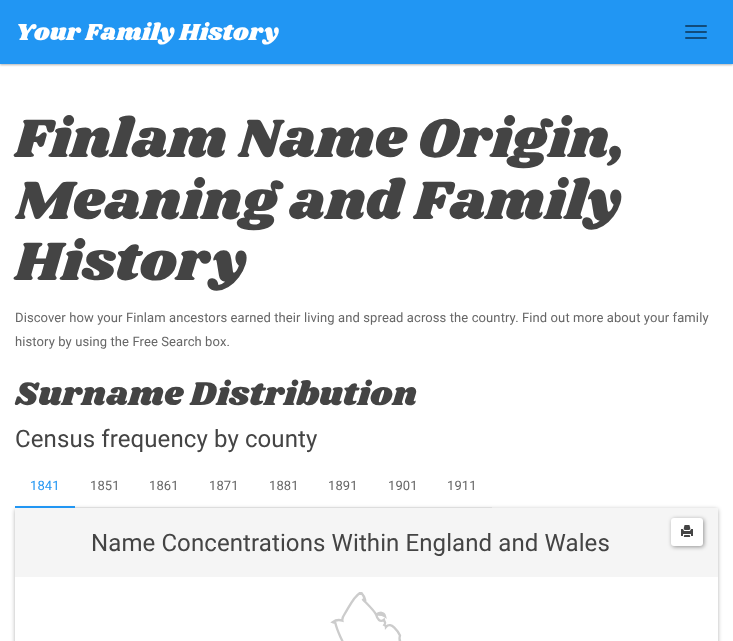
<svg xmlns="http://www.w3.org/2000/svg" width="733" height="641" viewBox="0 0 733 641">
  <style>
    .t1 { font: 24px Shrikhand; letter-spacing: 0.1px; fill: #fff; }
    .t2 { font: 56px Shrikhand; letter-spacing: 0.1px; fill: #444; }
    .t3 { font: 13px Roboto; letter-spacing: 0.1px; fill: #666; }
    .t4 { font: 34px Shrikhand; letter-spacing: 0.1px; fill: #444; }
    .t5 { font: 24px Roboto; letter-spacing: 0.1px; fill: #444; }
    .t6 { font: 13px Roboto; letter-spacing: 0.1px; fill: #2196f3; }
  </style>
  <rect width="100%" height="100%" fill="#fff"/>
  <rect x="0" y="1" width="733" height="64" fill="#0000004d" filter="blur(1px)"/>
  <rect x="0" y="0" width="733" height="64" fill="#2196f3"/>
  <text x="15" y="40" class="t1">Your Family History</text>
  <rect x="685" y="25" width="22" height="2" rx="1" fill="#114b7a"/>
  <rect x="685" y="31" width="22" height="2" rx="1" fill="#114b7a"/>
  <rect x="685" y="37" width="22" height="2" rx="1" fill="#114b7a"/>
  <text x="15" y="157" class="t2">Finlam Name Origin,</text>
  <text x="15" y="219" class="t2">Meaning and Family</text>
  <text x="15" y="280" class="t2">History</text>
  <text x="15" y="322" class="t3">Discover how your Finlam ancestors earned their living and spread across the country. Find out more about your family</text>
  <text x="15" y="346" class="t3">history by using the Free Search box.</text>
  <text x="15" y="405" class="t4">Surname Distribution</text>
  <text x="15" y="447" class="t5">Census frequency by county</text>
  <rect x="15" y="509" width="703" height="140" rx="2" fill="#0000004d" filter="blur(2px)"/>
  <rect x="15" y="506" width="60" height="2" fill="#2196f3"/>
  <text x="30" y="490" class="t6">1841</text>
  <rect x="75" y="507" width="417" height="1" fill="#ddd"/>
  <text x="90" y="490" class="t3">1851</text>
  <text x="149" y="490" class="t3">1861</text>
  <text x="209" y="490" class="t3">1871</text>
  <text x="269" y="490" class="t3">1881</text>
  <text x="328" y="490" class="t3">1891</text>
  <text x="388" y="490" class="t3">1901</text>
  <text x="447" y="490" class="t3">1911</text>
  <rect x="15" y="508" width="703" height="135" rx="2" fill="#fff"/>
  <path d="M17 508H716C717 508 718 509 718 510V577H15V510C15 509 16 508 17 508Z" fill="#f5f5f5"/>
  <text x="91" y="551" class="t5">Name Concentrations Within England and Wales</text>
  <rect x="672" y="519" width="32" height="28" rx="3" fill="#00000066" filter="blur(2px)"/>
  <rect x="671" y="518" width="32" height="28" rx="3" fill="#fff"/>
  <image x="681" y="525" width="12" height="12" href="images/1.png"/>
  <image x="330" y="592" width="72" height="49" href="images/2.png"/>
</svg>
